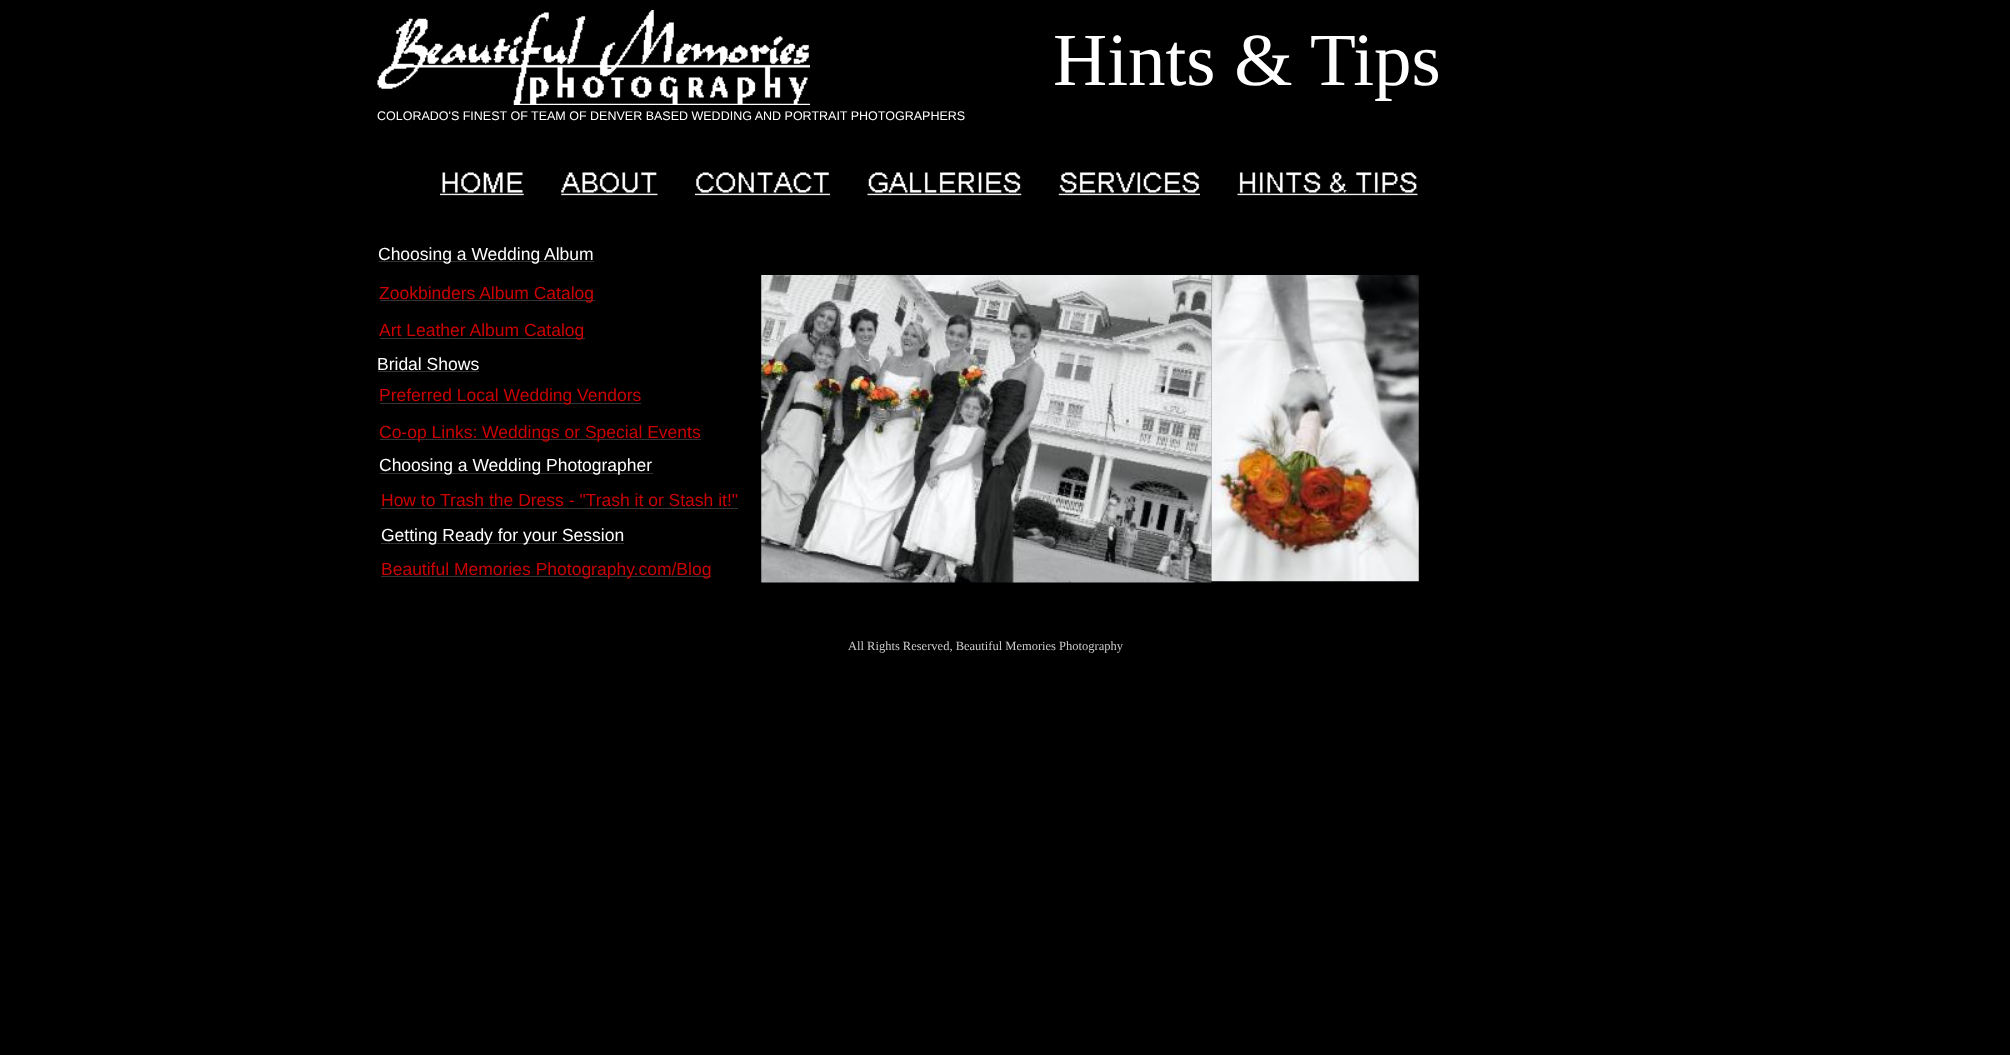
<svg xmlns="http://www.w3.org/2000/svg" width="2010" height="1055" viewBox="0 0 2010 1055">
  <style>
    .t1 { font: 75px Liberation Serif; fill: #fff; }
    .t2 { font: 12.5px Liberation Sans; fill: #fff; }
    .t3 { font: 17.5px Liberation Sans; fill: #fff; }
    .t4 { font: 17.5px Liberation Sans; fill: #c00; }
    .t5 { font: 12.5px Liberation Serif; fill: #ccc; }
  </style>
  <rect width="100%" height="100%" fill="#000"/>
  <image x="377" y="10" width="433" height="95" href="images/1.png"/>
  <text x="1053" y="85" class="t1">Hints &amp; Tips</text>
  <text x="377" y="120" class="t2">COLORADO'S FINEST OF TEAM OF DENVER BASED WEDDING AND PORTRAIT PHOTOGRAPHERS</text>
  <image x="440" y="172" width="84" height="24" href="images/2.png"/>
  <image x="561" y="172" width="97" height="24" href="images/3.png"/>
  <image x="695" y="172" width="135" height="24" href="images/4.png"/>
  <image x="867" y="172" width="155" height="24" href="images/5.png"/>
  <image x="1058" y="172" width="142" height="24" href="images/6.png"/>
  <image x="1237" y="172" width="181" height="24" href="images/7.png"/>
  <rect x="379" y="261" width="215" height="1" fill="#333"/>
  <text x="378" y="260" class="t3">Choosing a Wedding Album</text>
  <rect x="380" y="300" width="215" height="1" fill="#333"/>
  <text x="379" y="299" class="t4">Zookbinders Album Catalog</text>
  <image x="1211" y="275" width="208" height="307" href="images/9.png"/>
  <image x="761" y="275" width="451" height="308" href="images/8.png"/>
  <rect x="380" y="338" width="205" height="1" fill="#333"/>
  <text x="379" y="336" class="t4">Art Leather Album Catalog</text>
  <text x="377" y="370" class="t3">Bridal Shows</text>
  <rect x="378" y="371" width="101" height="1" fill="#333"/>
  <rect x="380" y="403" width="261" height="1" fill="#333"/>
  <text x="379" y="401" class="t4">Preferred Local Wedding Vendors</text>
  <rect x="380" y="439" width="321" height="1" fill="#333"/>
  <text x="379" y="438" class="t4">Co-op Links: Weddings or Special Events</text>
  <rect x="380" y="473" width="273" height="1" fill="#333"/>
  <text x="379" y="471" class="t3">Choosing a Wedding Photographer</text>
  <text x="381" y="506" class="t4">How to Trash the Dress - "Trash it or Stash it!"</text>
  <rect x="381" y="508" width="357" height="1" fill="#333"/>
  <rect x="381" y="543" width="243" height="1" fill="#333"/>
  <text x="381" y="541" class="t3">Getting Ready for your Session</text>
  <rect x="381" y="576" width="330" height="1" fill="#333"/>
  <text x="381" y="575" class="t4">Beautiful Memories Photography.com/Blog</text>
  <text x="848" y="650" class="t5">All Rights Reserved, Beautiful Memories Photography</text>
</svg>
